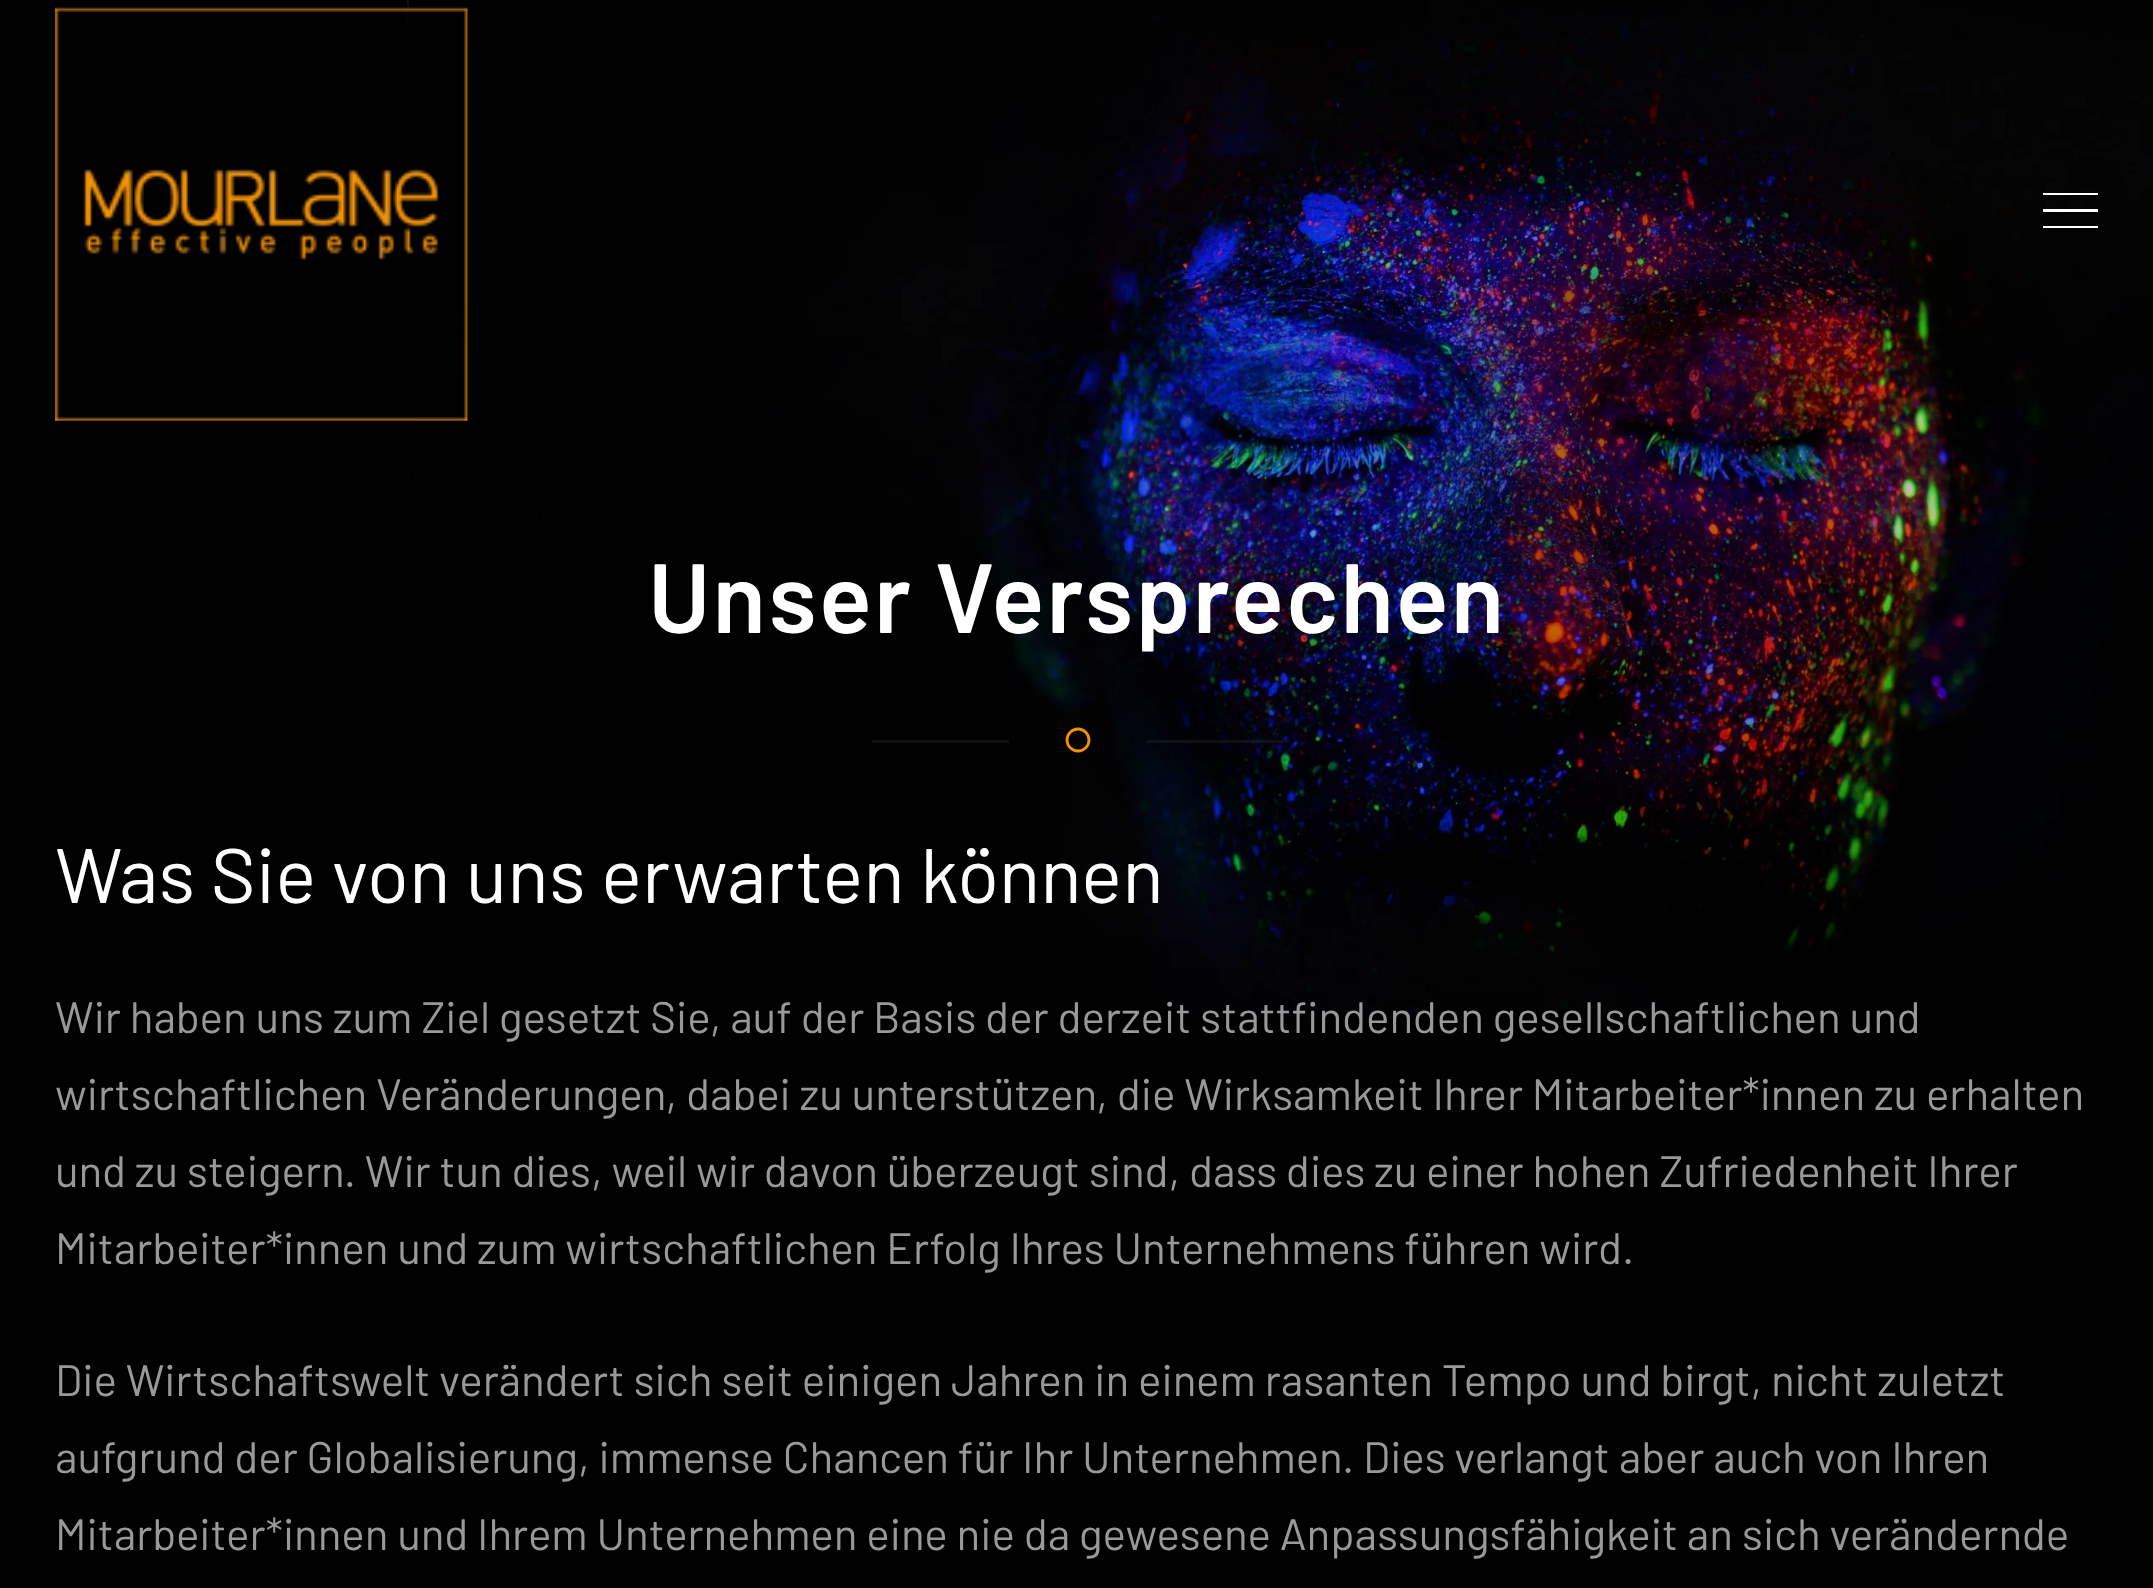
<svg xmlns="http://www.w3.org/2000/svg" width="2153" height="1588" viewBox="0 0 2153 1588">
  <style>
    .t1 { font: 600 98.25px Barlow; letter-spacing: 2.1px; fill: #fff; }
    .t2 { font: 77px Barlow; fill: #fff; }
    .t3 { font: 44px Barlow; fill: #999; }
  </style>
  <rect width="100%" height="100%" fill="#010101"/>
  <image x="407" y="0" width="1746" height="1021" href="images/2.png"/>
  <image x="55" y="7" width="413" height="414" href="images/1.png"/>
  <rect x="2043" y="193" width="55" height="2" fill="#fff"/>
  <rect x="2043" y="209" width="55" height="3" fill="#fff"/>
  <rect x="2043" y="226" width="55" height="2" fill="#fff"/>
  <text x="648" y="633" class="t1">Unser Versprechen</text>
  <circle cx="1078" cy="740" r="11" fill="none" stroke="#f39200" stroke-width="2.8"/>
  <rect x="872" y="740" width="137" height="3" fill="#101010"/>
  <rect x="1147" y="740" width="137" height="3" fill="#ffffff0f"/>
  <text x="55" y="903" class="t2">Was Sie von uns erwarten können</text>
  <text x="55" y="1033" class="t3">Wir haben uns zum Ziel gesetzt Sie, auf der Basis der derzeit stattfindenden gesellschaftlichen und</text>
  <text x="55" y="1110" class="t3">wirtschaftlichen Veränderungen, dabei zu unterstützen, die Wirksamkeit Ihrer Mitarbeiter*innen zu erhalten</text>
  <text x="55" y="1187" class="t3">und zu steigern. Wir tun dies, weil wir davon überzeugt sind, dass dies zu einer hohen Zufriedenheit Ihrer</text>
  <text x="55" y="1264" class="t3">Mitarbeiter*innen und zum wirtschaftlichen Erfolg Ihres Unternehmens führen wird.</text>
  <text x="55" y="1396" class="t3">Die Wirtschaftswelt verändert sich seit einigen Jahren in einem rasanten Tempo und birgt, nicht zuletzt</text>
  <text x="55" y="1473" class="t3">aufgrund der Globalisierung, immense Chancen für Ihr Unternehmen. Dies verlangt aber auch von Ihren</text>
  <text x="55" y="1550" class="t3">Mitarbeiter*innen und Ihrem Unternehmen eine nie da gewesene Anpassungsfähigkeit an sich verändernde</text>
</svg>
